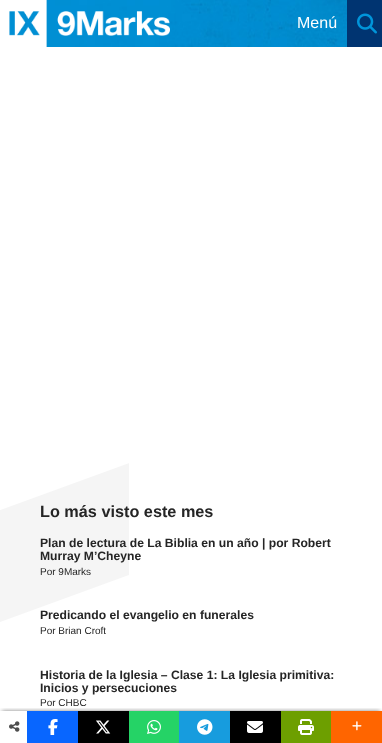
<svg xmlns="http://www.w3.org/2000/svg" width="382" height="743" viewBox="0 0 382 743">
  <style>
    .t1 { font: 16px Liberation Sans; fill: #fff; }
    .t2 { font: bold 16.25px Liberation Sans; fill: #252525; }
    .t3 { font: bold 12.15px Liberation Sans; fill: #252525; }
    .t4 { font: 10px Liberation Sans; fill: #252525; }
  </style>
  <defs>
    <clipPath id="clip1"><rect x="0" y="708" width="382" height="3"/></clipPath>
  </defs>
  <rect width="100%" height="100%" fill="#fff"/>
  <image x="9" y="0" width="338" height="47" href="images/1.png"/>
  <image x="0" y="0" width="170" height="47" href="images/2.png"/>
  <text x="297" y="28" class="t1">Menú</text>
  <rect x="347" y="0" width="35" height="47" fill="#003471"/>
  <image x="357" y="13" width="20" height="21" href="images/3.png"/>
  <image x="0" y="463" width="129" height="159" href="images/4.png"/>
  <text x="40" y="517" class="t2">Lo más visto este mes</text>
  <text x="40" y="547" class="t3">Plan de lectura de La Biblia en un año | por Robert</text>
  <text x="40" y="560" class="t3">Murray M’Cheyne</text>
  <text x="40" y="575" class="t4">Por 9Marks</text>
  <text x="40" y="619" class="t3">Predicando el evangelio en funerales</text>
  <text x="40" y="634" class="t4">Por Brian Croft</text>
  <text x="40" y="679" class="t3">Historia de la Iglesia – Clase 1: La Iglesia primitiva:</text>
  <text x="40" y="692" class="t3">Inicios y persecuciones</text>
  <text x="40" y="706" class="t4">Por CHBC</text>
  <g clip-path="url(#clip1)">
    <rect x="2" y="711" width="378" height="28" fill="#00000080" filter="blur(2px)"/>
  </g>
  <image x="9" y="721" width="11" height="11" href="images/5.png"/>
  <rect x="27" y="711" width="51" height="32" fill="#0866ff"/>
  <image x="48" y="719" width="10" height="16" href="images/6.png"/>
  <rect x="78" y="711" width="51" height="32" fill="#000"/>
  <image x="96" y="720" width="15" height="14" href="images/7.png"/>
  <rect x="129" y="711" width="50" height="32" fill="#25d366"/>
  <image x="147" y="720" width="14" height="14" href="images/8.png"/>
  <rect x="179" y="711" width="51" height="32" fill="#179cde"/>
  <image x="197" y="719" width="16" height="16" href="images/9.png"/>
  <rect x="230" y="711" width="51" height="32" fill="#000"/>
  <image x="247" y="721" width="16" height="12" href="images/10.png"/>
  <rect x="281" y="711" width="50" height="32" fill="#6d9f00"/>
  <image x="298" y="719" width="16" height="16" href="images/11.png"/>
  <rect x="331" y="711" width="51" height="32" fill="#ff6500"/>
  <image x="352" y="721" width="10" height="10" href="images/12.png"/>
</svg>
